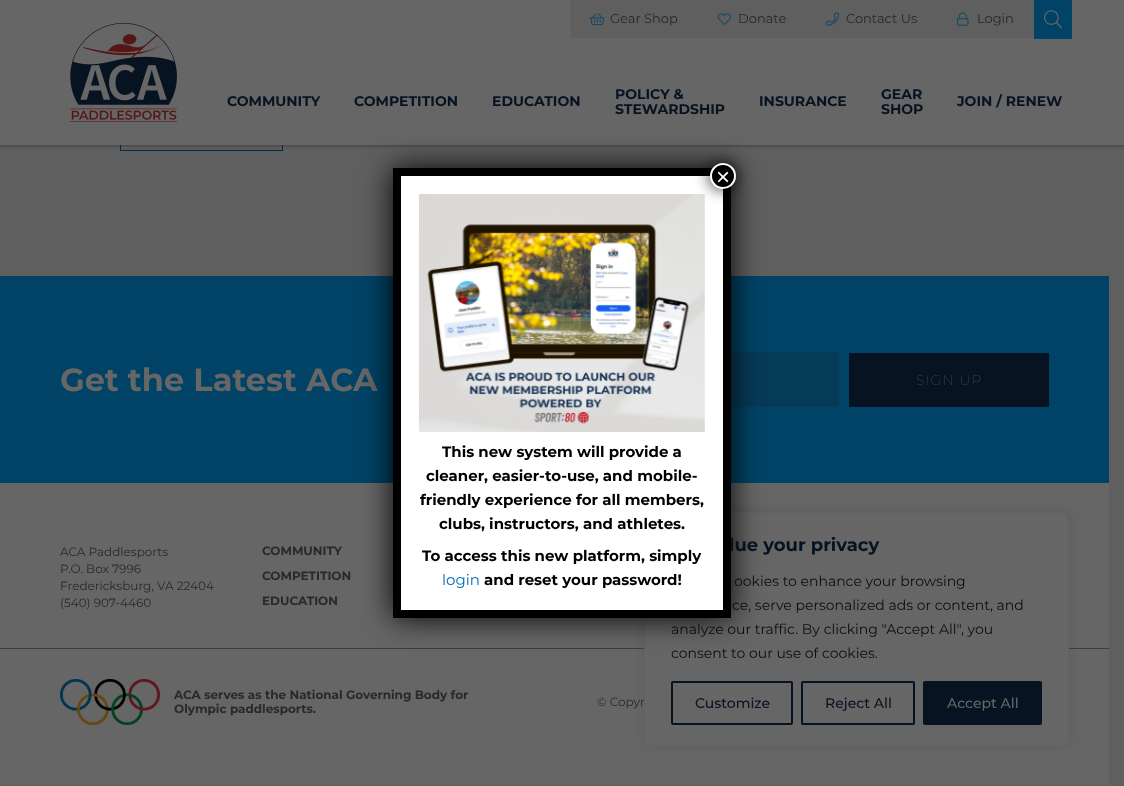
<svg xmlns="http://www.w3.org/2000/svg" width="1124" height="786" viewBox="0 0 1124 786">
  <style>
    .t1 { font: 13px Montserrat; fill: #292929; }
    .t2 { font: bold 14px Montserrat; fill: #071321; }
    .t3 { font: bold 32px Montserrat; fill: #666; }
    .t4 { font: 100 14px Montserrat; letter-spacing: 1px; fill: #666; }
    .t5 { font: 12px Montserrat; fill: #292929; }
    .t6 { font: bold 12px Montserrat; fill: #292929; }
    .t7 { font: bold 18px Montserrat; fill: #071321; }
    .t8 { font: 24px Liberation Sans; fill: #fff; }
    .t9 { font: bold 15px Montserrat; fill: #000; }
    .t10 { font: 15px Montserrat; fill: #006db7; }
    .t11 { font: 14px Montserrat; fill: #0d0d0d; }
    .t12 { font: 500 14px Montserrat; fill: #071321; }
    .t13 { font: 500 14px Montserrat; fill: #666; }
  </style>
  <rect width="100%" height="100%" fill="#5f5f5f"/>
  <rect x="120.5" y="103.5" width="162" height="47" fill="none" stroke="#002c49"/>
  <rect x="0" y="0" width="1124" height="145" fill="#00000080" filter="blur(2px)"/>
  <rect x="0" y="0" width="1124" height="145" fill="#666"/>
  <image x="70" y="23" width="107" height="99" href="images/1.png"/>
  <rect x="570" y="0" width="464" height="38" fill="#5f5f5f"/>
  <image x="590" y="13" width="15" height="12" href="images/2.png"/>
  <text x="610" y="23" class="t1">Gear Shop</text>
  <image x="718" y="13" width="13" height="12" href="images/3.png"/>
  <text x="738" y="23" class="t1">Donate</text>
  <image x="826" y="12" width="13" height="14" href="images/4.png"/>
  <text x="846" y="23" class="t1">Contact Us</text>
  <image x="957" y="12" width="12" height="14" href="images/5.png"/>
  <text x="977" y="23" class="t1">Login</text>
  <rect x="1034" y="0" width="38" height="39" fill="#004366"/>
  <image x="1044" y="10" width="18" height="19" href="images/6.png"/>
  <text x="227" y="106" class="t2">COMMUNITY</text>
  <text x="354" y="106" class="t2">COMPETITION</text>
  <text x="492" y="106" class="t2">EDUCATION</text>
  <text x="615" y="99" class="t2">POLICY &amp;</text>
  <text x="615" y="114" class="t2">STEWARDSHIP</text>
  <text x="759" y="106" class="t2">INSURANCE</text>
  <text x="881" y="99" class="t2">GEAR</text>
  <text x="881" y="114" class="t2">SHOP</text>
  <text x="957" y="106" class="t2">JOIN / RENEW</text>
  <rect x="0" y="483" width="1109" height="302" fill="#666"/>
  <rect x="0" y="276" width="1109" height="207" fill="#004366"/>
  <text x="60" y="391" class="t3">Get the Latest ACA</text>
  <rect x="499" y="352" width="340" height="55" rx="2" fill="#063b57"/>
  <rect x="849" y="353" width="200" height="54" fill="#071321"/>
  <text x="916" y="385" class="t4">SIGN UP</text>
  <text x="60" y="556" class="t5">ACA Paddlesports</text>
  <text x="60" y="573" class="t5">P.O. Box 7996</text>
  <text x="60" y="590" class="t5">Fredericksburg, VA 22404</text>
  <text x="60" y="607" class="t5">(540) 907-4460</text>
  <text x="262" y="555" class="t6">COMMUNITY</text>
  <text x="262" y="580" class="t6">COMPETITION</text>
  <text x="262" y="605" class="t6">EDUCATION</text>
  <rect x="0" y="648" width="1109" height="1" fill="#3e3e3e"/>
  <image x="60" y="679" width="100" height="46" href="images/7.png"/>
  <text x="174" y="699" class="t6">ACA serves as the National Governing Body for</text>
  <text x="174" y="713" class="t6">Olympic paddlesports.</text>
  <text x="597" y="706" class="t5">© Copyr</text>
  <rect x="644" y="511" width="425" height="234" rx="6" fill="#4544444d" filter="blur(5px)"/>
  <rect x="644.5" y="512.5" width="424" height="233" rx="5.5" fill="#666" stroke="#626262"/>
  <rect x="393" y="168" width="338" height="450" rx="3" fill="#020202" filter="blur(15px)"/>
  <rect x="401" y="176" width="322" height="434" fill="#fff"/>
  <text x="729" y="551" class="t7">lue your privacy</text>
  <path d="M397 172H727V614H397Z" fill="none" stroke="#000" stroke-width="8"/>
  <image x="419" y="194" width="286" height="238" href="images/8.png"/>
  <rect x="709" y="162" width="28" height="28" rx="14" fill="#020202bf" filter="blur(7.5px)"/>
  <circle cx="723" cy="176" r="12" fill="#000" stroke="#fff" stroke-width="2"/>
  <text x="716" y="185" class="t8">×</text>
  <text x="442" y="457" class="t9">This new system will provide a</text>
  <text x="426" y="481" class="t9">cleaner, easier-to-use, and mobile-</text>
  <text x="420" y="505" class="t9">friendly experience for all members,</text>
  <text x="439" y="529" class="t9">clubs, instructors, and athletes.</text>
  <text x="422" y="561" class="t9">To access this new platform, simply</text>
  <text x="442" y="585" class="t10">login</text>
  <text x="484" y="585" class="t9">and reset your password!</text>
  <text x="734" y="586" class="t11">ookies to enhance your browsing</text>
  <text x="732" y="610" class="t11">ce, serve personalized ads or content, and</text>
  <text x="671" y="634" class="t11">analyze our traffic. By clicking "Accept All", you</text>
  <text x="671" y="658" class="t11">consent to our use of cookies.</text>
  <rect x="672" y="682" width="120" height="42" rx="1" fill="none" stroke="#071321" stroke-width="2"/>
  <text x="695" y="708" class="t12">Customize</text>
  <rect x="802" y="682" width="112" height="42" rx="1" fill="none" stroke="#071321" stroke-width="2"/>
  <text x="825" y="708" class="t12">Reject All</text>
  <rect x="924" y="682" width="117" height="42" rx="1" fill="#071321" stroke="#071321" stroke-width="2"/>
  <text x="947" y="708" class="t13">Accept All</text>
</svg>
